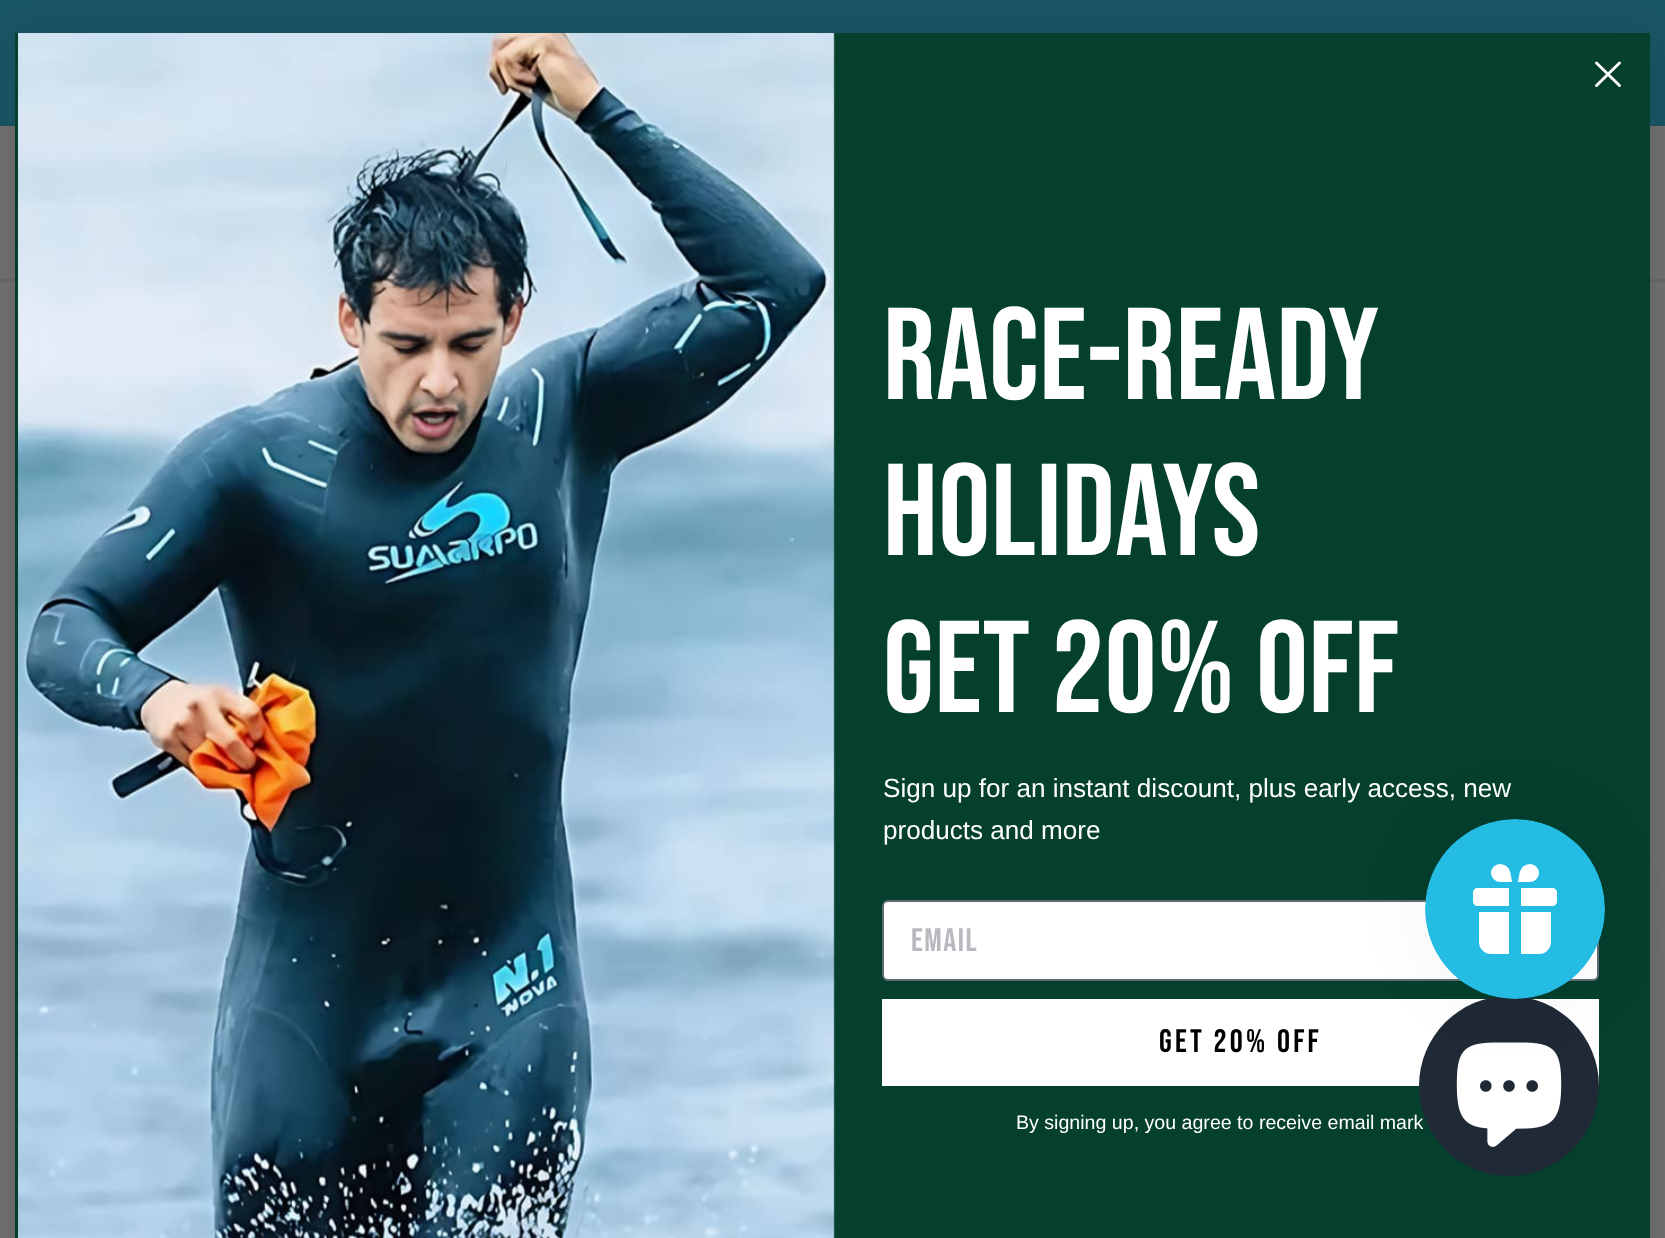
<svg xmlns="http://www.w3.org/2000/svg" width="1665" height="1238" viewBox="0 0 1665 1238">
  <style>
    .t1 { font: 130.5px Bebas Neue; letter-spacing: 0.5px; fill: #fff; }
    .t2 { font: 26.1px Liberation Sans; fill: #fff; }
    .t3 { font: 32.5px Bebas Neue; letter-spacing: 1.5px; fill: #b8b9bf; }
    .t4 { font: 32.5px Bebas Neue; letter-spacing: 3.25px; fill: #000; }
    .t5 { font: 19.6px Liberation Sans; fill: #fff; }
  </style>
  <rect width="100%" height="100%" fill="#727272"/>
  <rect x="0" y="0" width="1665" height="126" fill="#1a5766"/>
  <rect x="0" y="279" width="1665" height="3" fill="#696966"/>
  <rect x="15" y="33" width="1635" height="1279" fill="#00000026" filter="blur(24.5px)"/>
  <rect x="15" y="33" width="1635" height="1205" fill="#04402d"/>
  <path d="M1596.5 63L1619.5 85.5M1596.5 85.5L1619.5 63Z" fill="none" stroke="#fff" stroke-width="2.9" stroke-linecap="round" stroke-linejoin="round"/>
  <image x="18" y="33" width="817" height="1205" href="images/1.png"/>
  <text x="883" y="399" class="t1">RACE-READY</text>
  <text x="883" y="555" class="t1">HOLIDAYS</text>
  <text x="883" y="712" class="t1">GET 20% OFF</text>
  <text x="883" y="797" class="t2">Sign up for an instant discount, plus early access, new</text>
  <text x="883" y="839" class="t2">products and more</text>
  <rect x="883" y="901" width="715" height="79" rx="5" fill="#fff" stroke="#606a72" stroke-width="2"/>
  <text x="911" y="951" class="t3">Email</text>
  <rect x="882" y="999" width="717" height="87" fill="#fff"/>
  <text x="1159" y="1052" class="t4">GET 20% OFF</text>
  <text x="1016" y="1129" class="t5">By signing up, you agree to receive email mark</text>
  <circle cx="1509" cy="1086" r="90" fill="#202a36"/>
  <image x="1456" y="1042" width="106" height="105" href="images/3.png"/>
  <rect x="1425" y="819" width="180" height="180" rx="90" fill="#0000000d" filter="blur(37.5px)"/>
  <image x="1425" y="819" width="180" height="180" href="images/2.png"/>
</svg>
